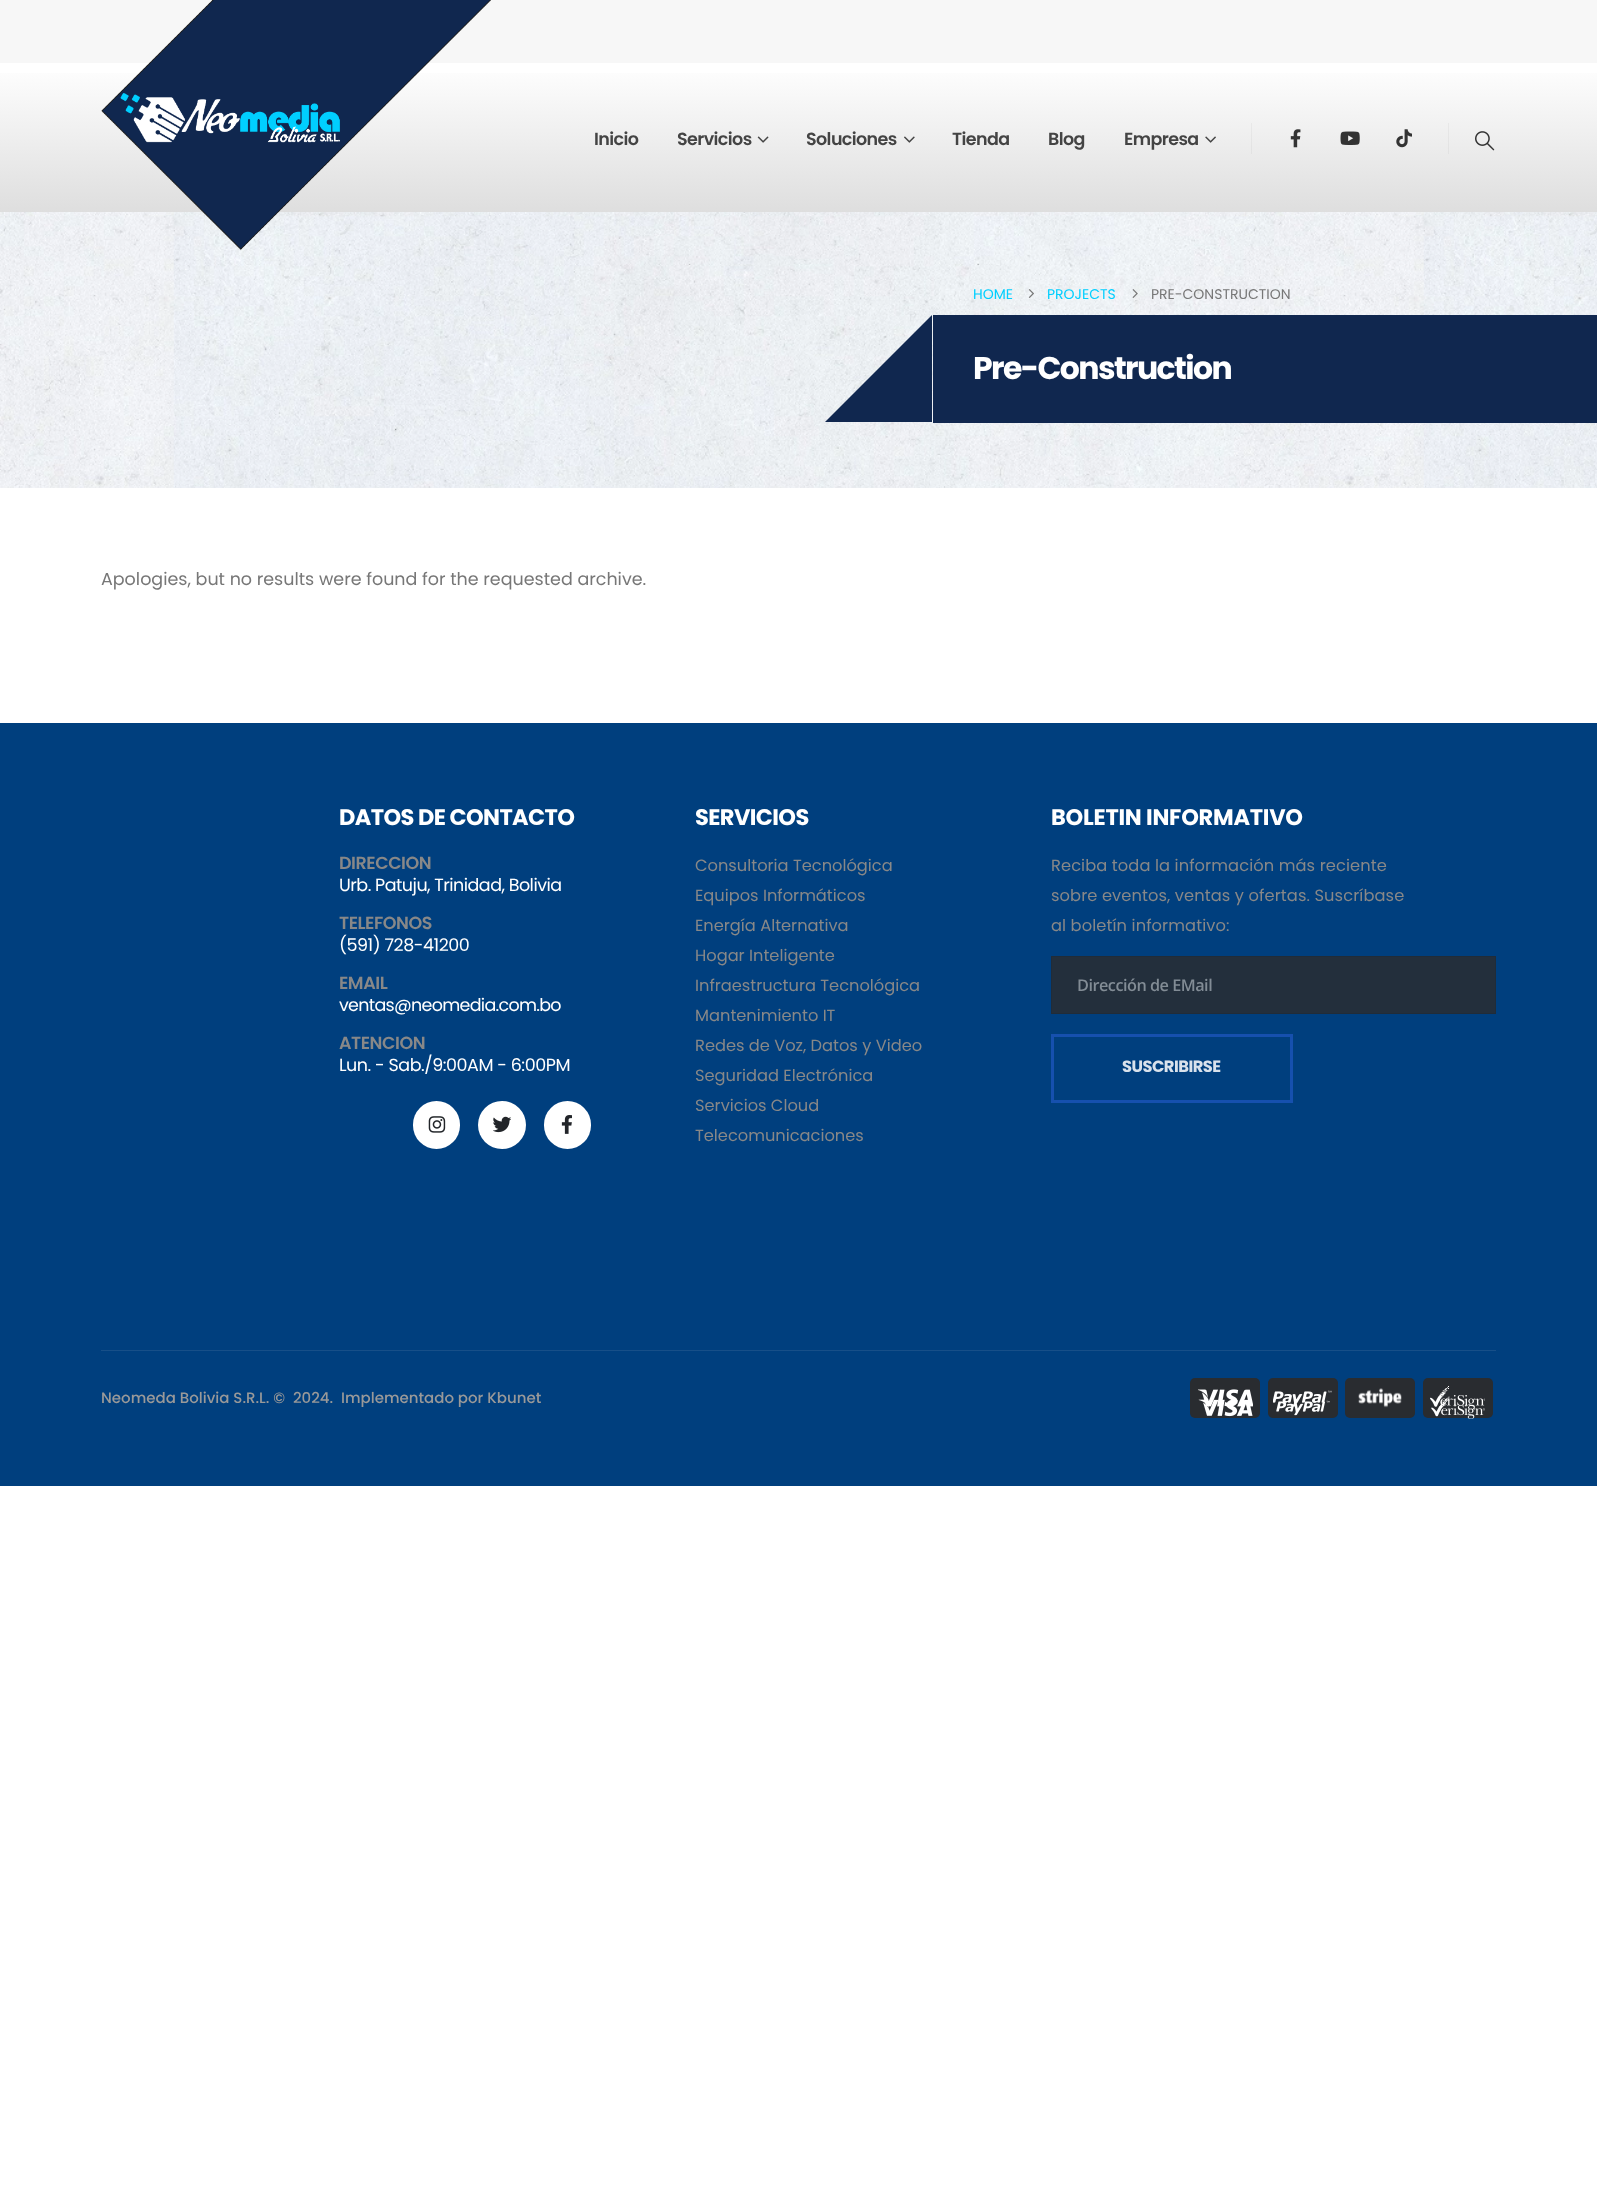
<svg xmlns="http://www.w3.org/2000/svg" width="1597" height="2188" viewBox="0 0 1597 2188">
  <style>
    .t1 { font: 600 17.5px Poppins; letter-spacing: -0.6px; fill: #444; }
    .t2 { font: 14px Poppins; fill: #01cfff; }
    .t3 { font: 14px Poppins; fill: #777; }
    .t4 { font: bold 31.5px Poppins; letter-spacing: -1.6px; fill: #fff; }
    .t5 { font: 17.5px Poppins; fill: #777; }
    .t6 { font: bold 22.5px Poppins; letter-spacing: -0.6px; fill: #fff; }
    .t7 { font: 600 17.5px Poppins; letter-spacing: -0.45px; fill: #888; }
    .t8 { font: 17.5px Poppins; letter-spacing: -0.5px; fill: #fff; }
    .t9 { font: 17.5px Poppins; letter-spacing: -0.45px; fill: #fff; }
    .t10 { font: 17.5px Poppins; letter-spacing: -0.7px; fill: #fff; }
    .t11 { font: 16.25px Poppins; fill: #888; }
    .t12 { font: bold 22.5px Poppins; letter-spacing: -0.25px; fill: #fff; }
    .t13 { font: 16.25px Poppins; letter-spacing: 0.1px; fill: #888; }
    .t14 { font: 600 16.25px Open Sans; letter-spacing: -0.5px; fill: #828c95; }
    .t15 { font: bold 16.25px Poppins; letter-spacing: -0.5px; fill: #d9e2ec; }
    .t16 { font: 500 15px Poppins; fill: #999; }
  </style>
  <defs>
    <linearGradient id="g1" gradientUnits="userSpaceOnUse" x1="799" y1="62" x2="799" y2="213"><stop offset="0" stop-color="#fff"/><stop offset="1" stop-color="#dedede"/></linearGradient>
    <linearGradient id="g2" gradientUnits="userSpaceOnUse" x1="799" y1="62" x2="799" y2="213"><stop offset="0" stop-color="#f5f5f5"/><stop offset="1" stop-color="#d5d5d5"/></linearGradient>
  </defs>
  <rect width="100%" height="100%" fill="#fff"/>
  <rect x="0" y="0" width="1597" height="63" fill="#f7f7f7"/>
  <rect x="0" y="73" width="1597" height="139" fill="url(#g1)"/>
  <rect x="1448" y="123" width="1" height="31" fill="url(#g2)"/>
  <rect x="1251" y="123" width="1" height="31" fill="url(#g2)"/>
  <image x="0" y="212" width="1597" height="276" href="images/9.png"/>
  <image x="101" y="0" width="390" height="250" href="images/1.png"/>
  <text x="594" y="145" class="t1">Inicio</text>
  <text x="677" y="145" class="t1">Servicios</text>
  <image x="757" y="136" width="12" height="7" href="images/2.png"/>
  <text x="806" y="145" class="t1">Soluciones</text>
  <image x="904" y="136" width="11" height="7" href="images/3.png"/>
  <text x="952" y="145" class="t1">Tienda</text>
  <text x="1048" y="145" class="t1">Blog</text>
  <text x="1124" y="145" class="t1">Empresa</text>
  <image x="1205" y="136" width="11" height="7" href="images/4.png"/>
  <image x="1290" y="129" width="11" height="19" href="images/5.png"/>
  <image x="1340" y="131" width="20" height="14" href="images/6.png"/>
  <image x="1396" y="129" width="16" height="19" href="images/7.png"/>
  <image x="1475" y="131" width="20" height="20" href="images/8.png"/>
  <text x="973" y="299" class="t2">HOME</text>
  <image x="1028" y="289" width="6" height="9" href="images/10.png"/>
  <text x="1047" y="299" class="t2">PROJECTS</text>
  <image x="1132" y="289" width="6" height="9" href="images/11.png"/>
  <text x="1151" y="299" class="t3">PRE-CONSTRUCTION</text>
  <rect x="933" y="315" width="664" height="108" fill="#10274f"/>
  <path d="M932 315V422H825Z" fill="#10274f"/>
  <text x="973" y="379" class="t4">Pre-Construction</text>
  <text x="101" y="585" class="t5">Apologies, but no results were found for the requested archive.</text>
  <rect x="0" y="723" width="1597" height="763" fill="#003f7e"/>
  <text x="339" y="825" class="t6">DATOS DE CONTACTO</text>
  <text x="339" y="869" class="t7">DIRECCION</text>
  <text x="339" y="891" class="t8">Urb. Patuju, Trinidad, Bolivia</text>
  <text x="339" y="929" class="t7">TELEFONOS</text>
  <text x="339" y="951" class="t9">(591) 728-41200</text>
  <text x="339" y="989" class="t7">EMAIL</text>
  <text x="339" y="1011" class="t10">ventas@neomedia.com.bo</text>
  <text x="339" y="1049" class="t7">ATENCION</text>
  <text x="339" y="1071" class="t9">Lun. - Sab./9:00AM - 6:00PM</text>
  <rect x="413" y="1101" width="47" height="48" rx="23.5" fill="#fff"/>
  <image x="428" y="1116" width="18" height="17" href="images/12.png"/>
  <circle cx="502" cy="1125" r="24" fill="#fff"/>
  <image x="493" y="1116" width="18" height="17" href="images/13.png"/>
  <rect x="544" y="1101" width="47" height="48" rx="23.5" fill="#fff"/>
  <image x="561" y="1115" width="11" height="19" href="images/14.png"/>
  <text x="695" y="825" class="t6">SERVICIOS</text>
  <text x="695" y="871" class="t11">Consultoria Tecnológica</text>
  <text x="695" y="901" class="t11">Equipos Informáticos</text>
  <text x="695" y="931" class="t11">Energía Alternativa</text>
  <text x="695" y="961" class="t11">Hogar Inteligente</text>
  <text x="695" y="991" class="t11">Infraestructura Tecnológica</text>
  <text x="695" y="1021" class="t11">Mantenimiento IT</text>
  <text x="695" y="1051" class="t11">Redes de Voz, Datos y Video</text>
  <text x="695" y="1081" class="t11">Seguridad Electrónica</text>
  <text x="695" y="1111" class="t11">Servicios Cloud</text>
  <text x="695" y="1141" class="t11">Telecomunicaciones</text>
  <text x="1051" y="825" class="t12">BOLETIN INFORMATIVO</text>
  <text x="1051" y="871" class="t13">Reciba toda la información más reciente</text>
  <text x="1051" y="901" class="t13">sobre eventos, ventas y ofertas. Suscríbase</text>
  <text x="1051" y="931" class="t13">al boletín informativo:</text>
  <rect x="1051.5" y="956.5" width="444" height="57" fill="#232f3c" stroke="#202c39"/>
  <text x="1077" y="991" class="t14">Dirección de EMail</text>
  <rect x="1052.5" y="1035.5" width="239" height="66" fill="none" stroke="#1650ae" stroke-width="3"/>
  <text x="1122" y="1072" class="t15">SUSCRIBIRSE</text>
  <rect x="101" y="1350" width="1395" height="1" fill="#174f88"/>
  <text x="101" y="1403" class="t16" xml:space="preserve">Neomeda Bolivia S.R.L. ©  2024.  Implementado por Kbunet</text>
  <rect x="1190" y="1378" width="70" height="40" rx="5" fill="#292c30"/>
  <image x="1198" y="1389" width="55" height="18" href="images/15.png"/>
  <image x="1198" y="1399" width="55" height="18" href="images/16.png"/>
  <rect x="1268" y="1378" width="70" height="40" rx="5" fill="#292c30"/>
  <image x="1273" y="1390" width="59" height="17" href="images/17.png"/>
  <image x="1276" y="1400" width="54" height="16" href="images/18.png"/>
  <rect x="1345" y="1378" width="70" height="40" rx="5" fill="#292c30"/>
  <image x="1358" y="1388" width="44" height="20" href="images/19.png"/>
  <rect x="1423" y="1378" width="70" height="40" rx="5" fill="#292c30"/>
  <image x="1430" y="1386" width="55" height="24" href="images/20.png"/>
  <image x="1431" y="1396" width="54" height="23" href="images/21.png"/>
</svg>
